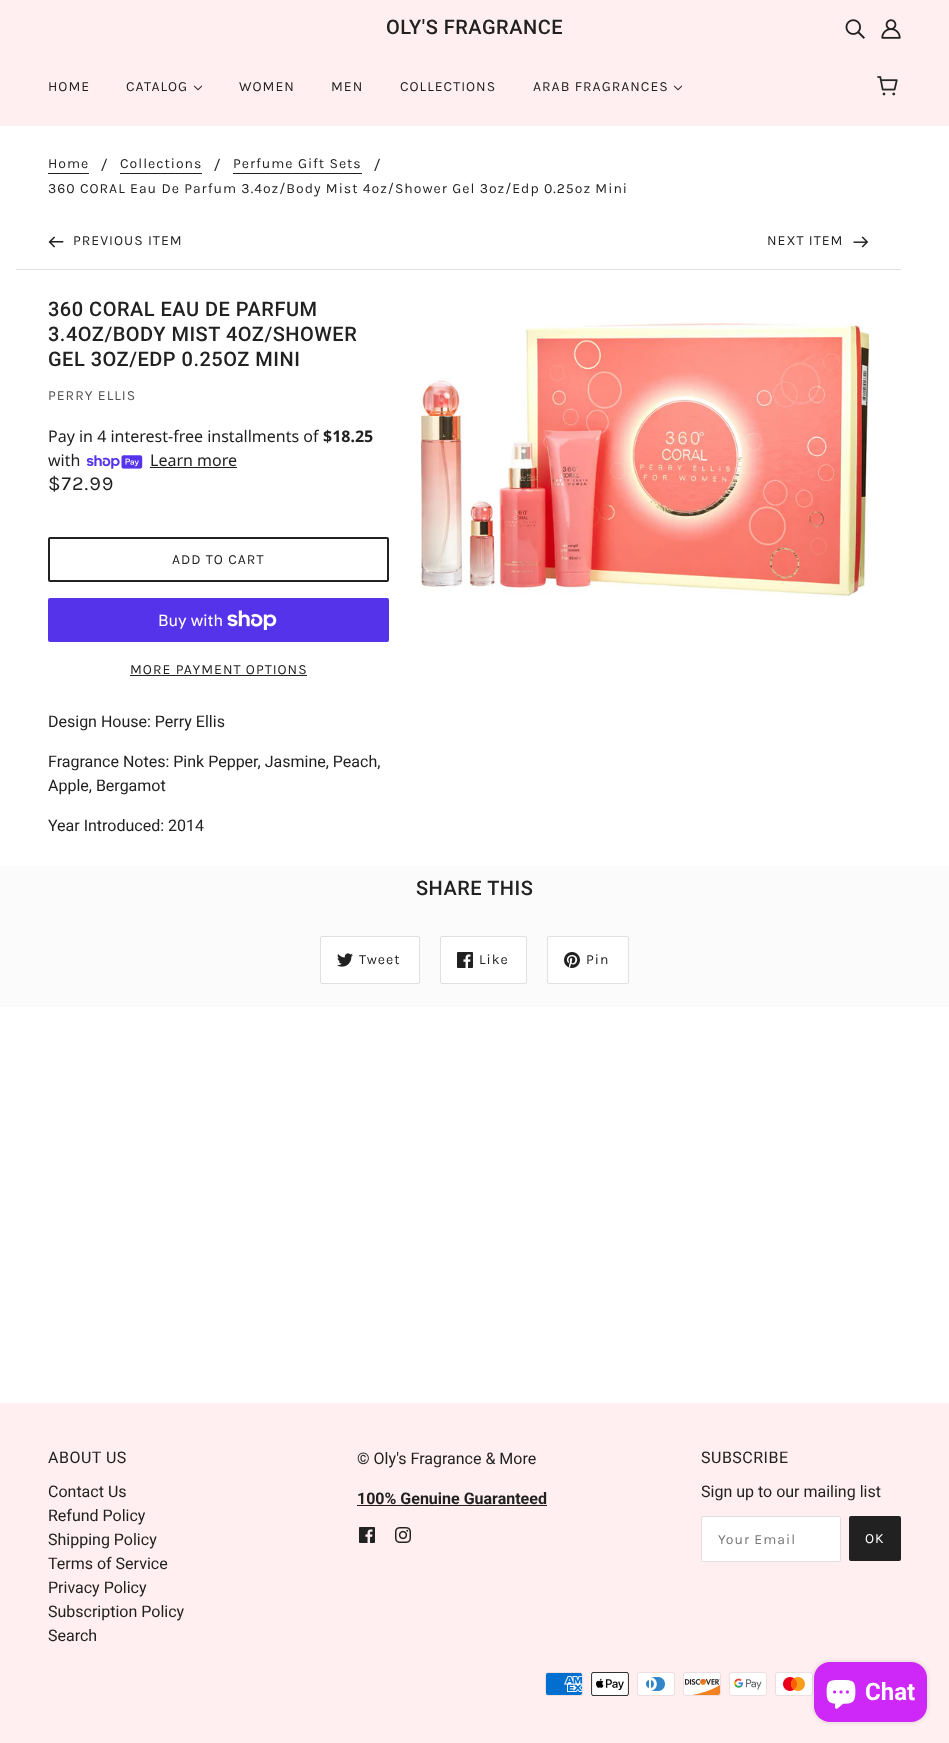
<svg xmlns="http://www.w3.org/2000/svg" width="949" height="1743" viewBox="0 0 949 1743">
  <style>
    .t1 { font: 500 20px Roboto; letter-spacing: 0.5px; fill: #212121; }
    .t2 { font: 14px Karla; letter-spacing: 1px; fill: #212121; }
    .t3 { font: 16px Roboto; fill: #212121; }
    .t4 { font: 14px Karla; letter-spacing: 1px; fill: #515151; }
    .t5 { font: 16px Noto Sans; fill: #212121; }
    .t6 { font: bold 16px Noto Sans; fill: #212121; }
    .t7 { font: 20px Karla; letter-spacing: 1px; fill: #212121; }
    .t8 { font: 16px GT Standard; fill: #fff; }
    .t9 { font: 16px Roboto; letter-spacing: 0.5px; fill: #212121; }
    .t10 { font: bold 16px Roboto; fill: #212121; }
    .t11 { font: 14px Karla; letter-spacing: 1px; fill: #757575; }
    .t12 { font: 14px Karla; letter-spacing: 1px; fill: #fff; }
    .t13 { font: bold 24px Roboto; fill: #fff; }
  </style>
  <rect width="100%" height="100%" fill="#fff"/>
  <rect x="0" y="0" width="949" height="126" fill="#ffeff0"/>
  <text x="386" y="34" class="t1">OLY'S FRAGRANCE</text>
  <image x="845" y="19" width="20" height="20" href="images/1.png"/>
  <image x="881" y="19" width="20" height="20" href="images/2.png"/>
  <text x="48" y="91" class="t2">HOME</text>
  <text x="126" y="91" class="t2">CATALOG</text>
  <image x="193" y="85" width="10" height="6" href="images/3.png"/>
  <text x="239" y="91" class="t2">WOMEN</text>
  <text x="331" y="91" class="t2">MEN</text>
  <text x="400" y="91" class="t2">COLLECTIONS</text>
  <text x="533" y="91" class="t2">ARAB FRAGRANCES</text>
  <image x="673" y="85" width="10" height="6" href="images/3.png"/>
  <image x="877" y="76" width="21" height="20" href="images/4.png"/>
  <text x="48" y="168" class="t2">Home</text>
  <rect x="48" y="173" width="41" height="1" fill="#212121"/>
  <text x="101" y="170" class="t3">/</text>
  <text x="120" y="168" class="t2">Collections</text>
  <rect x="120" y="173" width="82" height="1" fill="#212121"/>
  <text x="214" y="170" class="t3">/</text>
  <text x="233" y="168" class="t2">Perfume Gift Sets</text>
  <rect x="233" y="173" width="129" height="1" fill="#212121"/>
  <text x="374" y="170" class="t3">/</text>
  <text x="48" y="193" class="t2">360 CORAL Eau De Parfum 3.4oz/Body Mist 4oz/Shower Gel 3oz/Edp 0.25oz Mini</text>
  <rect x="16" y="269" width="885" height="1" fill="#e0e0e0"/>
  <image x="48" y="236" width="16" height="12" href="images/5.png"/>
  <text x="73" y="245" class="t2">PREVIOUS ITEM</text>
  <text x="767" y="245" class="t2">NEXT ITEM</text>
  <image x="853" y="236" width="16" height="12" href="images/6.png"/>
  <text x="48" y="316" class="t1">360 CORAL EAU DE PARFUM</text>
  <text x="48" y="341" class="t1">3.4OZ/BODY MIST 4OZ/SHOWER</text>
  <text x="48" y="366" class="t1">GEL 3OZ/EDP 0.25OZ MINI</text>
  <text x="48" y="400" class="t4">PERRY ELLIS</text>
  <image x="421" y="322" width="448" height="276" href="images/7.png"/>
  <text x="48" y="442" class="t5">Pay in 4 interest-free installments of</text>
  <text x="323" y="442" class="t6">$18.25</text>
  <text x="48" y="466" class="t5">with</text>
  <image x="86" y="455" width="57" height="14" href="images/8.png"/>
  <text x="150" y="466" class="t5">Learn more</text>
  <rect x="150" y="467" width="87" height="1" fill="#212121"/>
  <text x="48" y="490" class="t7">$72.99</text>
  <rect x="49" y="538" width="339" height="43" rx="1" fill="none" stroke="#212121" stroke-width="2"/>
  <text x="172" y="564" class="t2">ADD TO CART</text>
  <rect x="48" y="598" width="341" height="44" rx="2" fill="#5433eb"/>
  <text x="158" y="626" class="t8">Buy with</text>
  <image x="227" y="610" width="50" height="20" href="images/9.png"/>
  <text x="130" y="674" class="t2">MORE PAYMENT OPTIONS</text>
  <rect x="130" y="675" width="177" height="1" fill="#212121"/>
  <text x="48" y="727" class="t3">Design House: Perry Ellis</text>
  <text x="48" y="767" class="t3">Fragrance Notes: Pink Pepper, Jasmine, Peach,</text>
  <text x="48" y="791" class="t3">Apple, Bergamot</text>
  <text x="48" y="831" class="t3">Year Introduced: 2014</text>
  <rect x="0" y="866" width="949" height="141" fill="#fcfbfc"/>
  <text x="416" y="895" class="t1">SHARE THIS</text>
  <rect x="320.5" y="936.5" width="99" height="47" rx="1.5" fill="#fff" stroke="#e0e0e0"/>
  <image x="337" y="953" width="16" height="14" href="images/10.png"/>
  <text x="359" y="964" class="t2">Tweet</text>
  <rect x="440.5" y="936.5" width="86" height="47" rx="1.5" fill="#fff" stroke="#e0e0e0"/>
  <image x="457" y="952" width="16" height="16" href="images/11.png"/>
  <text x="479" y="964" class="t2">Like</text>
  <rect x="547.5" y="936.5" width="81" height="47" rx="1.5" fill="#fff" stroke="#e0e0e0"/>
  <image x="564" y="952" width="16" height="16" href="images/12.png"/>
  <text x="586" y="964" class="t2">Pin</text>
  <rect x="0" y="1403" width="949" height="340" fill="#ffeff0"/>
  <text x="48" y="1463" class="t9">ABOUT US</text>
  <text x="48" y="1497" class="t3">Contact Us</text>
  <text x="48" y="1521" class="t3">Refund Policy</text>
  <text x="48" y="1545" class="t3">Shipping Policy</text>
  <text x="48" y="1569" class="t3">Terms of Service</text>
  <text x="48" y="1593" class="t3">Privacy Policy</text>
  <text x="48" y="1617" class="t3">Subscription Policy</text>
  <text x="48" y="1641" class="t3">Search</text>
  <text x="357" y="1464" class="t3">© Oly's Fragrance &amp; More</text>
  <text x="357" y="1504" class="t10">100% Genuine Guaranteed</text>
  <rect x="357" y="1505" width="190" height="1" fill="#212121"/>
  <image x="359" y="1527" width="16" height="16" href="images/13.png"/>
  <image x="395" y="1527" width="16" height="16" href="images/14.png"/>
  <text x="701" y="1463" class="t9">SUBSCRIBE</text>
  <text x="701" y="1497" class="t3">Sign up to our mailing list</text>
  <rect x="701.5" y="1516.5" width="139" height="45" rx="1.5" fill="#fff" stroke="#e0e0e0"/>
  <text x="718" y="1544" class="t11">Your Email</text>
  <rect x="849" y="1516" width="52" height="45" rx="2" fill="#212121"/>
  <text x="865" y="1543" class="t12">OK</text>
  <image x="545" y="1672" width="38" height="24" href="images/15.png"/>
  <image x="591" y="1672" width="38" height="24" href="images/16.png"/>
  <image x="637" y="1672" width="38" height="24" href="images/17.png"/>
  <image x="683" y="1672" width="38" height="24" href="images/18.png"/>
  <image x="729" y="1672" width="38" height="24" href="images/19.png"/>
  <image x="775" y="1672" width="38" height="24" href="images/20.png"/>
  <rect x="814" y="1662" width="113" height="60" rx="16" fill="#00000026" filter="blur(2.5px)"/>
  <rect x="814" y="1662" width="113" height="60" rx="16" fill="#cd28f8"/>
  <image x="826" y="1680" width="30" height="29" href="images/21.png"/>
  <text x="865" y="1700" class="t13">Chat</text>
</svg>
